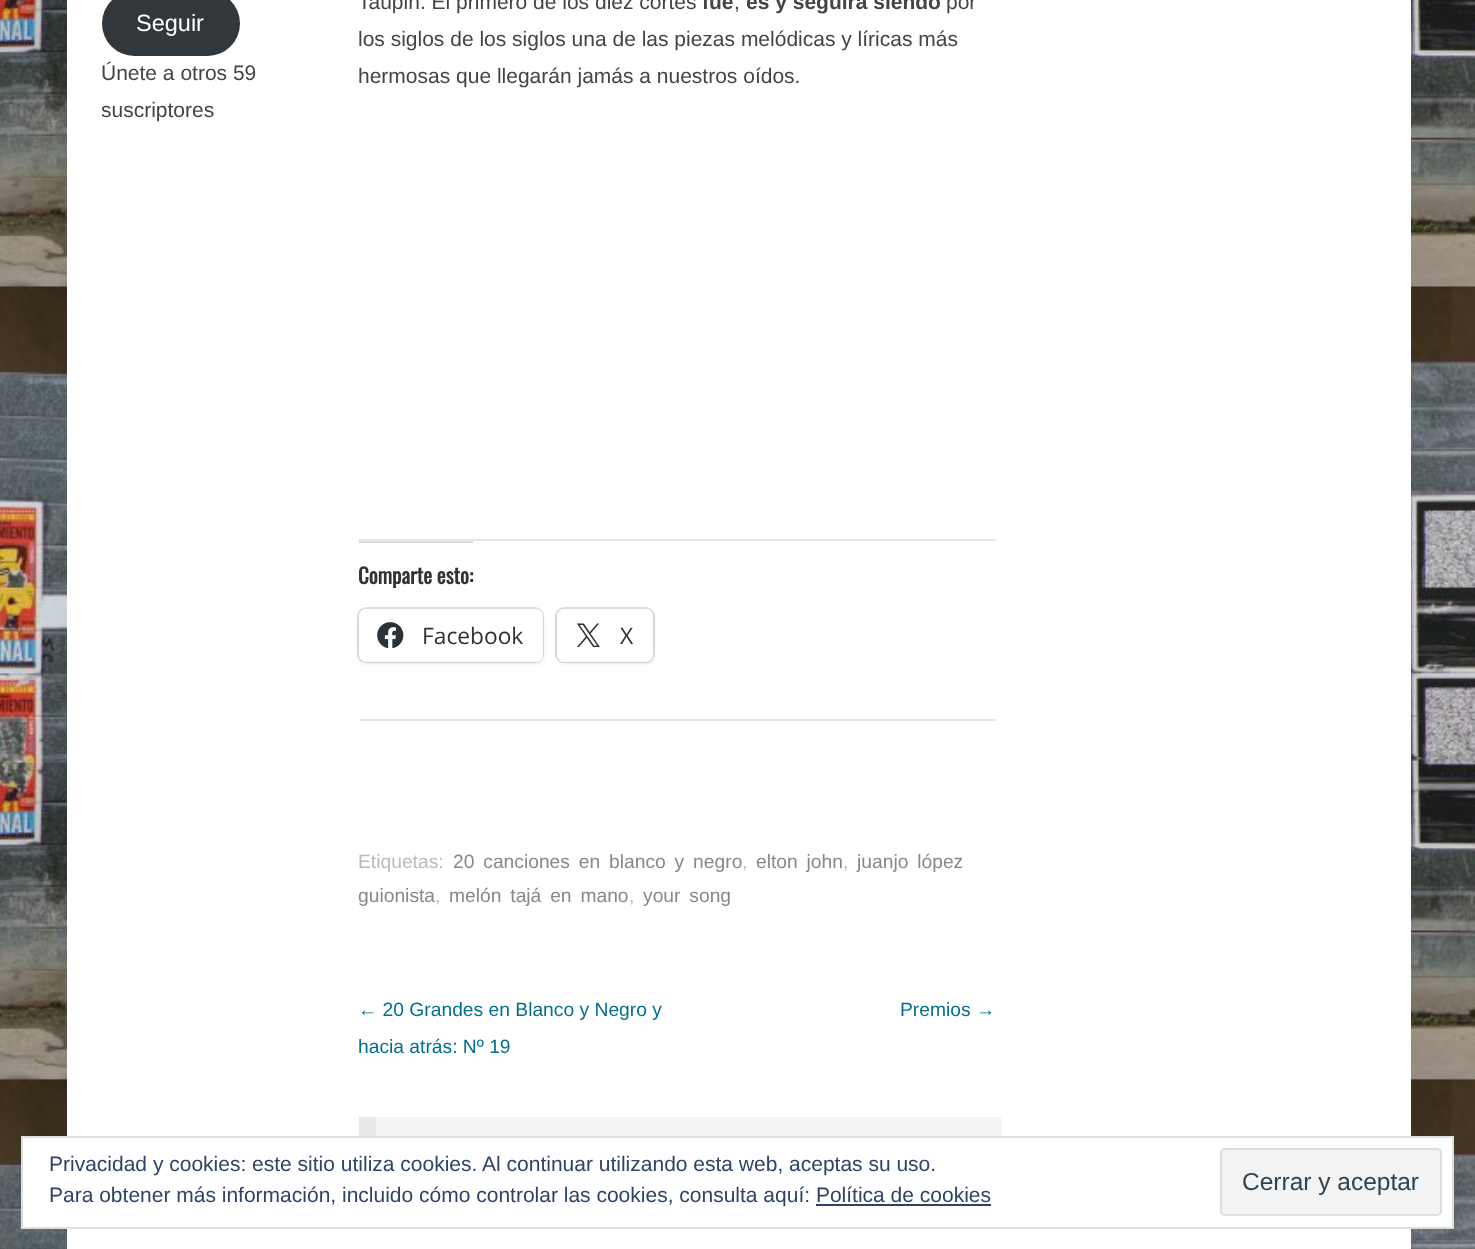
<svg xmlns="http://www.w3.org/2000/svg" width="1475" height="1249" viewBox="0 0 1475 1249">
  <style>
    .t1 { font: 23.5px Liberation Sans; fill: #fff; }
    .t2 { font: 21px Liberation Sans; fill: #444; }
    .t3 { font: bold 21px Liberation Sans; fill: #444; }
    .t4 { font: bold 21px Oswald; fill: #333; }
    .t5 { font: 22.75px Open Sans; fill: #2c3338; }
    .t6 { font: 19.25px Liberation Sans; fill: #bbb; }
    .t7 { font: 19.25px Liberation Sans; fill: #888; }
    .t8 { font: 19.25px Liberation Sans; fill: #026f90; }
    .t9 { font: 21px Liberation Sans; fill: #2e4467; }
    .t10 { font: 24.5px Liberation Sans; fill: #2e4453; }
  </style>
  <defs>
    <clipPath id="clip1"><rect x="102" y="0" width="215" height="130"/></clipPath>
  </defs>
  <rect width="100%" height="100%" fill="#fff"/>
  <image x="0" y="0" width="1475" height="1249" href="images/1.png"/>
  <rect x="67" y="0" width="1344" height="1249" fill="#fff"/>
  <rect x="102" y="-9" width="138" height="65" rx="32.5" fill="#32373c"/>
  <text x="136" y="31" class="t1">Seguir</text>
  <text x="101" y="80" class="t2">Únete a otros 59</text>
  <g clip-path="url(#clip1)">
    <text x="101" y="117" class="t2">suscriptores</text>
  </g>
  <text x="358" y="9" class="t2">Taupin. El primero de los diez cortes</text>
  <text x="702" y="9" class="t3">fue</text>
  <text x="734" y="9" class="t2">,</text>
  <text x="746" y="9" class="t3">es y seguirá siendo</text>
  <text x="946" y="9" class="t2">por</text>
  <text x="358" y="46" class="t2">los siglos de los siglos una de las piezas melódicas y líricas más</text>
  <text x="358" y="83" class="t2">hermosas que llegarán jamás a nuestros oídos.</text>
  <rect x="359" y="539" width="637" height="2" fill="#e7e7e7"/>
  <rect x="359" y="541" width="114" height="2" fill="#dcdcde"/>
  <text x="358" y="584" class="t4">Comparte esto:</text>
  <rect x="358" y="608" width="185" height="54" rx="8" fill="none" stroke="#e0e0e0" stroke-width="2"/>
  <rect x="359" y="611" width="184" height="52" rx="7" fill="#0000001f" filter="blur(2px)"/>
  <rect x="359" y="609" width="184" height="53" rx="7" fill="#fff"/>
  <image x="377" y="622" width="27" height="27" href="images/2.png"/>
  <text x="422" y="644" class="t5">Facebook</text>
  <rect x="556" y="608" width="98" height="54" rx="8" fill="none" stroke="#e0e0e0" stroke-width="2"/>
  <rect x="557" y="611" width="96" height="52" rx="7" fill="#0000001f" filter="blur(2px)"/>
  <rect x="557" y="609" width="96" height="53" rx="7" fill="#fff"/>
  <image x="577" y="623" width="23" height="25" href="images/3.png"/>
  <text x="620" y="644" class="t5">X</text>
  <rect x="359" y="719" width="637" height="2" fill="#e7e7e7"/>
  <text x="358" y="868" class="t6">Etiquetas:</text>
  <text x="453" y="868" word-spacing="3.5" class="t7">20 canciones en blanco y negro</text>
  <text x="742" y="868" class="t6">,</text>
  <text x="756" y="868" word-spacing="3.5" class="t7">elton john</text>
  <text x="843" y="868" class="t6">,</text>
  <text x="857" y="868" word-spacing="3.5" class="t7">juanjo lópez</text>
  <text x="358" y="902" class="t7">guionista</text>
  <text x="435" y="902" class="t6">,</text>
  <text x="449" y="902" word-spacing="3.5" class="t7">melón tajá en mano</text>
  <text x="629" y="902" class="t6">,</text>
  <text x="643" y="902" word-spacing="3.5" class="t7">your song</text>
  <text x="358" y="1016" class="t8">← 20 Grandes en Blanco y Negro y</text>
  <text x="358" y="1053" class="t8">hacia atrás: Nº 19</text>
  <text x="900" y="1016" class="t8">Premios →</text>
  <rect x="376" y="1117" width="625" height="19" fill="#f3f3f3"/>
  <rect x="359" y="1117" width="17" height="19" fill="#e9e9e9"/>
  <rect x="22" y="1137" width="1431" height="91" fill="#fff" stroke="#dedede" stroke-width="2"/>
  <text x="49" y="1171" class="t9">Privacidad y cookies: este sitio utiliza cookies. Al continuar utilizando esta web, aceptas su uso.</text>
  <text x="49" y="1202" class="t9">Para obtener más información, incluido cómo controlar las cookies, consulta aquí: Política de cookies</text>
  <rect x="1221" y="1149" width="220" height="66" rx="4" fill="#f3f3f3" stroke="#dedede" stroke-width="2"/>
  <text x="1242" y="1190" class="t10">Cerrar y aceptar</text>
  <rect x="816" y="1204" width="175" height="2" fill="#2e4467"/>
</svg>
